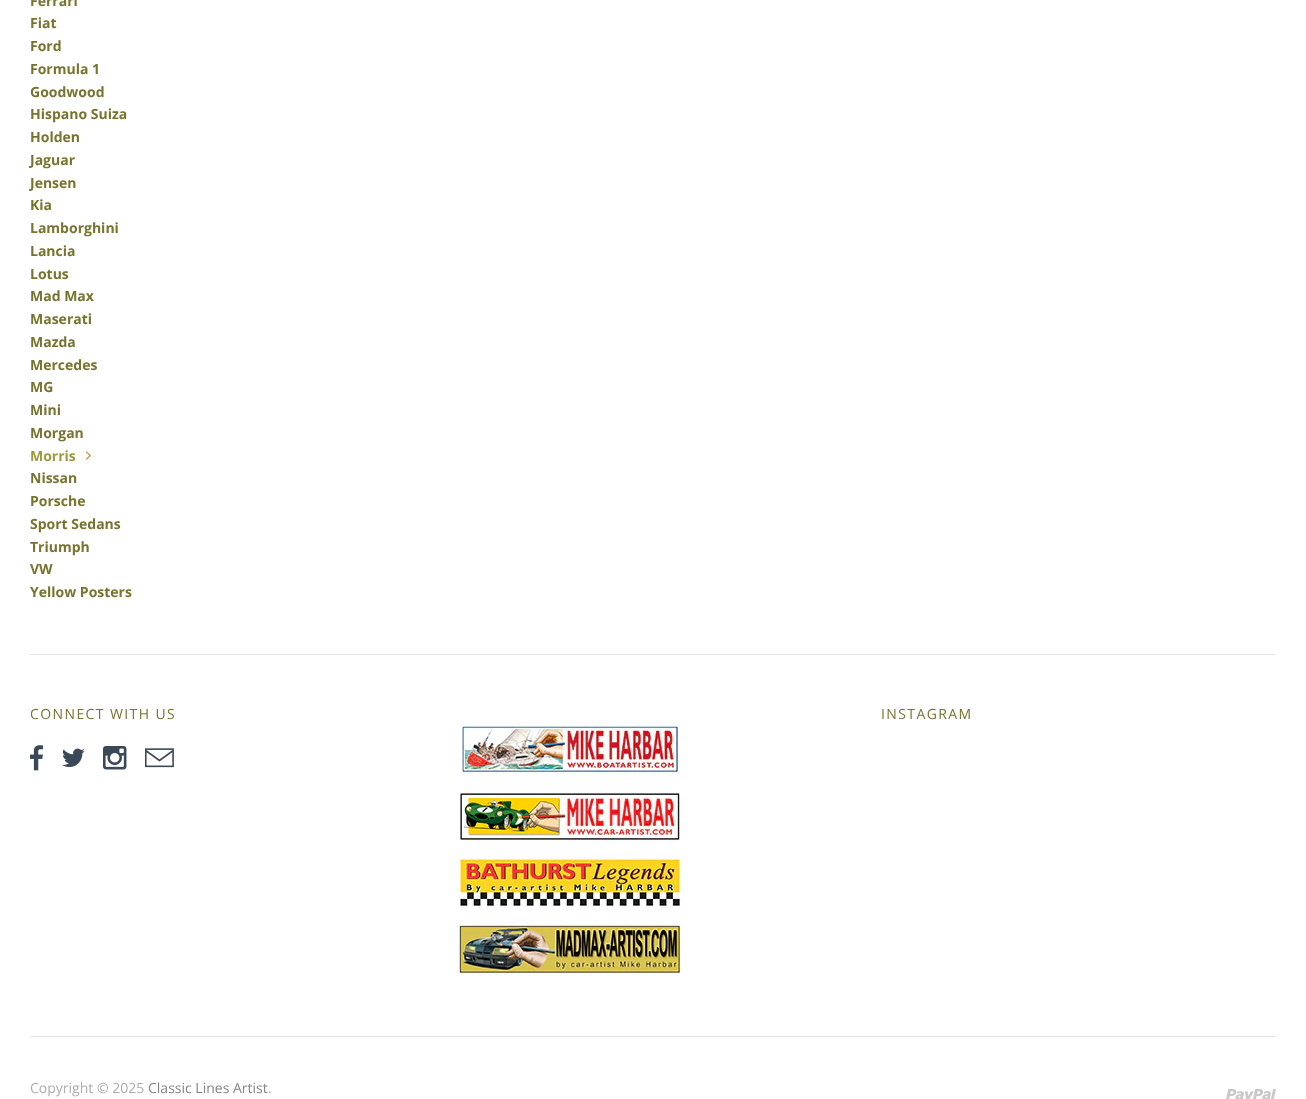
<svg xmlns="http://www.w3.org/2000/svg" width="1306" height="1099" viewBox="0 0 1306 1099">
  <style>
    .t1 { font: bold 14px Open Sans; fill: #777430; }
    .t2 { font: bold 14px Open Sans; fill: #9d993e; }
    .t3 { font: 14px Open Sans; letter-spacing: 1.4px; fill: #777430; }
    .t4 { font: 14px Open Sans; fill: #adadad; }
    .t5 { font: 14px Open Sans; fill: #858585; }
  </style>
  <rect width="100%" height="100%" fill="#fff"/>
  <text x="30" y="6" class="t1">Ferrari</text>
  <text x="30" y="28" class="t1">Fiat</text>
  <text x="30" y="51" class="t1">Ford</text>
  <text x="30" y="74" class="t1">Formula 1</text>
  <text x="30" y="97" class="t1">Goodwood</text>
  <text x="30" y="119" class="t1">Hispano Suiza</text>
  <text x="30" y="142" class="t1">Holden</text>
  <text x="30" y="165" class="t1">Jaguar</text>
  <text x="30" y="188" class="t1">Jensen</text>
  <text x="30" y="210" class="t1">Kia</text>
  <text x="30" y="233" class="t1">Lamborghini</text>
  <text x="30" y="256" class="t1">Lancia</text>
  <text x="30" y="279" class="t1">Lotus</text>
  <text x="30" y="301" class="t1">Mad Max</text>
  <text x="30" y="324" class="t1">Maserati</text>
  <text x="30" y="347" class="t1">Mazda</text>
  <text x="30" y="370" class="t1">Mercedes</text>
  <text x="30" y="392" class="t1">MG</text>
  <text x="30" y="415" class="t1">Mini</text>
  <text x="30" y="438" class="t1">Morgan</text>
  <text x="30" y="461" class="t2">Morris</text>
  <image x="86" y="451" width="5" height="9" href="images/1.png"/>
  <text x="30" y="483" class="t1">Nissan</text>
  <text x="30" y="506" class="t1">Porsche</text>
  <text x="30" y="529" class="t1">Sport Sedans</text>
  <text x="30" y="552" class="t1">Triumph</text>
  <text x="30" y="574" class="t1">VW</text>
  <text x="30" y="597" class="t1">Yellow Posters</text>
  <rect x="30" y="654" width="1246" height="1" fill="#e5e5e5"/>
  <text x="30" y="719" class="t3">CONNECT WITH US</text>
  <image x="30" y="745" width="13" height="26" href="images/2.png"/>
  <image x="62" y="748" width="23" height="19" href="images/3.png"/>
  <image x="103" y="746" width="24" height="24" href="images/4.png"/>
  <image x="145" y="748" width="29" height="20" href="images/5.png"/>
  <text x="881" y="719" class="t3">INSTAGRAM</text>
  <image x="461" y="723" width="219" height="52" href="images/6.png"/>
  <image x="459" y="792" width="221" height="50" href="images/7.png"/>
  <image x="455" y="852" width="230" height="56" href="images/8.png"/>
  <image x="455" y="920" width="230" height="55" href="images/9.png"/>
  <rect x="30" y="1036" width="1246" height="1" fill="#e5e5e5"/>
  <text x="30" y="1093" class="t4">Copyright © 2025</text>
  <text x="148" y="1093" class="t5">Classic Lines Artist</text>
  <text x="268" y="1093" class="t4">.</text>
  <image x="1226" y="1089" width="50" height="10" href="images/10.png"/>
</svg>
